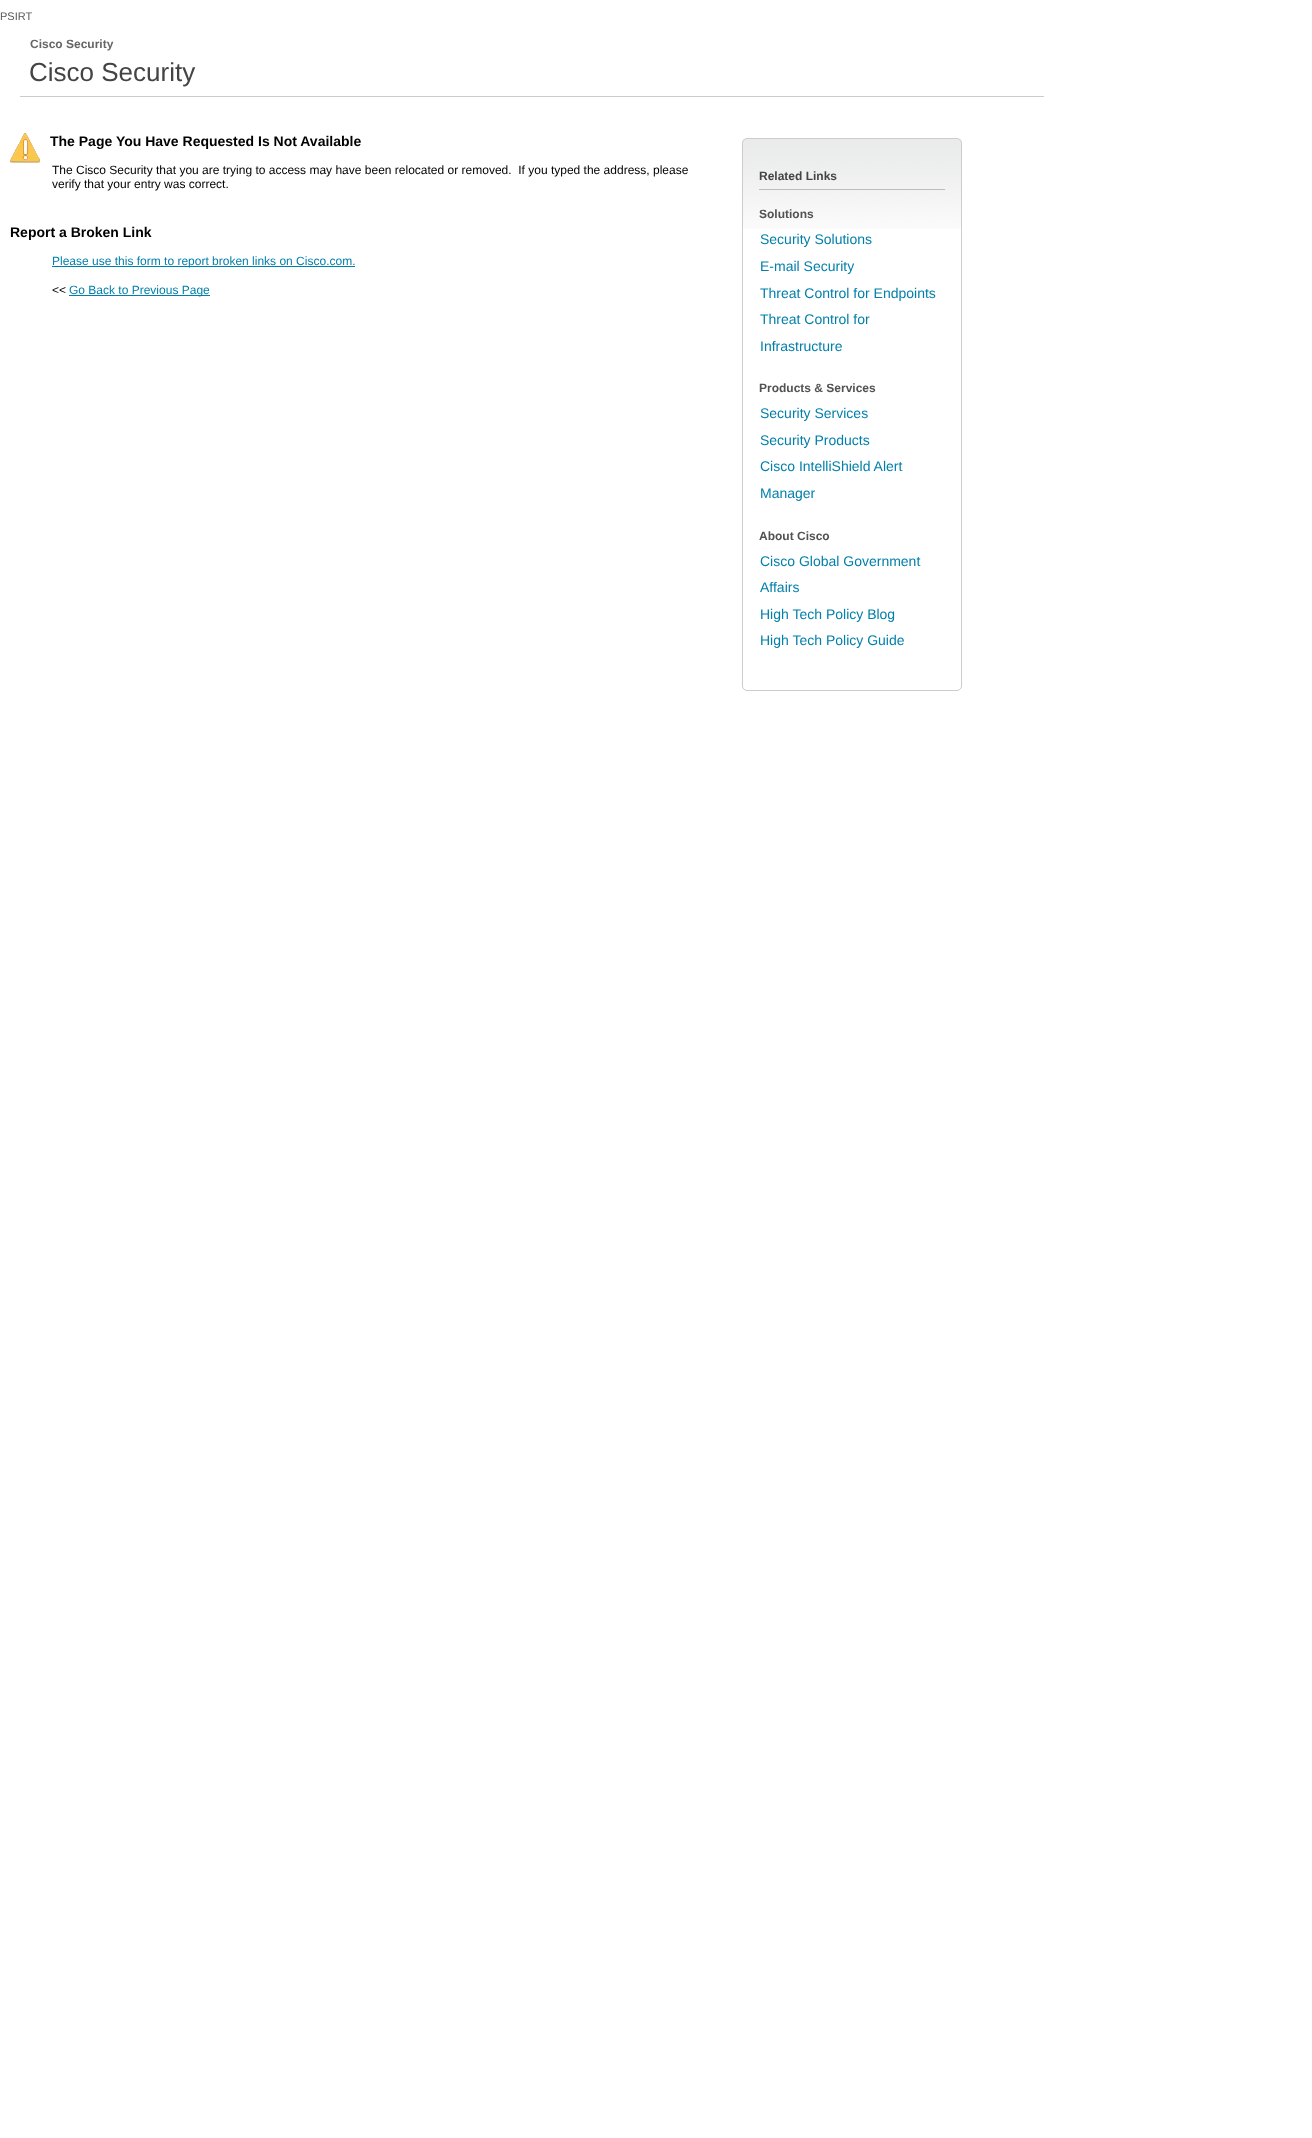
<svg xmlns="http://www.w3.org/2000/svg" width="1312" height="2138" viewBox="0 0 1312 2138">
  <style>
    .t1 { font: 11px Liberation Sans; fill: #58585b; }
    .t2 { font: bold 12px Liberation Sans; fill: #666; }
    .t3 { font: 26px Liberation Sans; fill: #444; }
    .t4 { font: bold 14px Liberation Sans; fill: #000; }
    .t5 { font: 12px Liberation Sans; fill: #000; }
    .t6 { font: 12px Liberation Sans; fill: #007fab; }
    .t7 { font: bold 12px Liberation Sans; fill: #444; }
    .t8 { font: bold 12px Liberation Sans; fill: #525252; }
    .t9 { font: 14px Liberation Sans; fill: #007fab; }
  </style>
  <rect width="100%" height="100%" fill="#fff"/>
  <text x="0" y="20" class="t1">PSIRT</text>
  <text x="30" y="48" class="t2">Cisco Security</text>
  <rect x="20" y="96" width="1024" height="1" fill="#ccc"/>
  <text x="29" y="81" class="t3">Cisco Security</text>
  <image x="10" y="133" width="30" height="30" href="images/1.png"/>
  <text x="50" y="146" class="t4">The Page You Have Requested Is Not Available</text>
  <text x="52" y="174" class="t5" xml:space="preserve">The Cisco Security that you are trying to access may have been relocated or removed.  If you typed the address, please</text>
  <text x="52" y="188" class="t5">verify that your entry was correct.</text>
  <text x="10" y="237" class="t4">Report a Broken Link</text>
  <rect x="52" y="266" width="303" height="1" fill="#007fab"/>
  <text x="52" y="265" class="t6">Please use this form to report broken links on Cisco.com.</text>
  <text x="52" y="294" class="t5">&lt;&lt;</text>
  <rect x="69" y="295" width="141" height="1" fill="#007fab"/>
  <text x="69" y="294" class="t6">Go Back to Previous Page</text>
  <image x="742" y="139" width="220" height="90" href="images/2.png"/>
  <rect x="742.5" y="138.5" width="219" height="552" rx="4.5" fill="none" stroke="#ccc"/>
  <rect x="759" y="189" width="186" height="1" fill="#bbb"/>
  <text x="759" y="180" class="t7">Related Links</text>
  <text x="759" y="218" class="t8">Solutions</text>
  <text x="760" y="244" class="t9">Security Solutions</text>
  <text x="760" y="271" class="t9">E-mail Security</text>
  <text x="760" y="298" class="t9">Threat Control for Endpoints</text>
  <text x="760" y="324" class="t9">Threat Control for</text>
  <text x="760" y="351" class="t9">Infrastructure</text>
  <text x="759" y="392" class="t8">Products &amp; Services</text>
  <text x="760" y="418" class="t9">Security Services</text>
  <text x="760" y="445" class="t9">Security Products</text>
  <text x="760" y="471" class="t9">Cisco IntelliShield Alert</text>
  <text x="760" y="498" class="t9">Manager</text>
  <text x="759" y="540" class="t8">About Cisco</text>
  <text x="760" y="566" class="t9">Cisco Global Government</text>
  <text x="760" y="592" class="t9">Affairs</text>
  <text x="760" y="619" class="t9">High Tech Policy Blog</text>
  <text x="760" y="645" class="t9">High Tech Policy Guide</text>
</svg>
